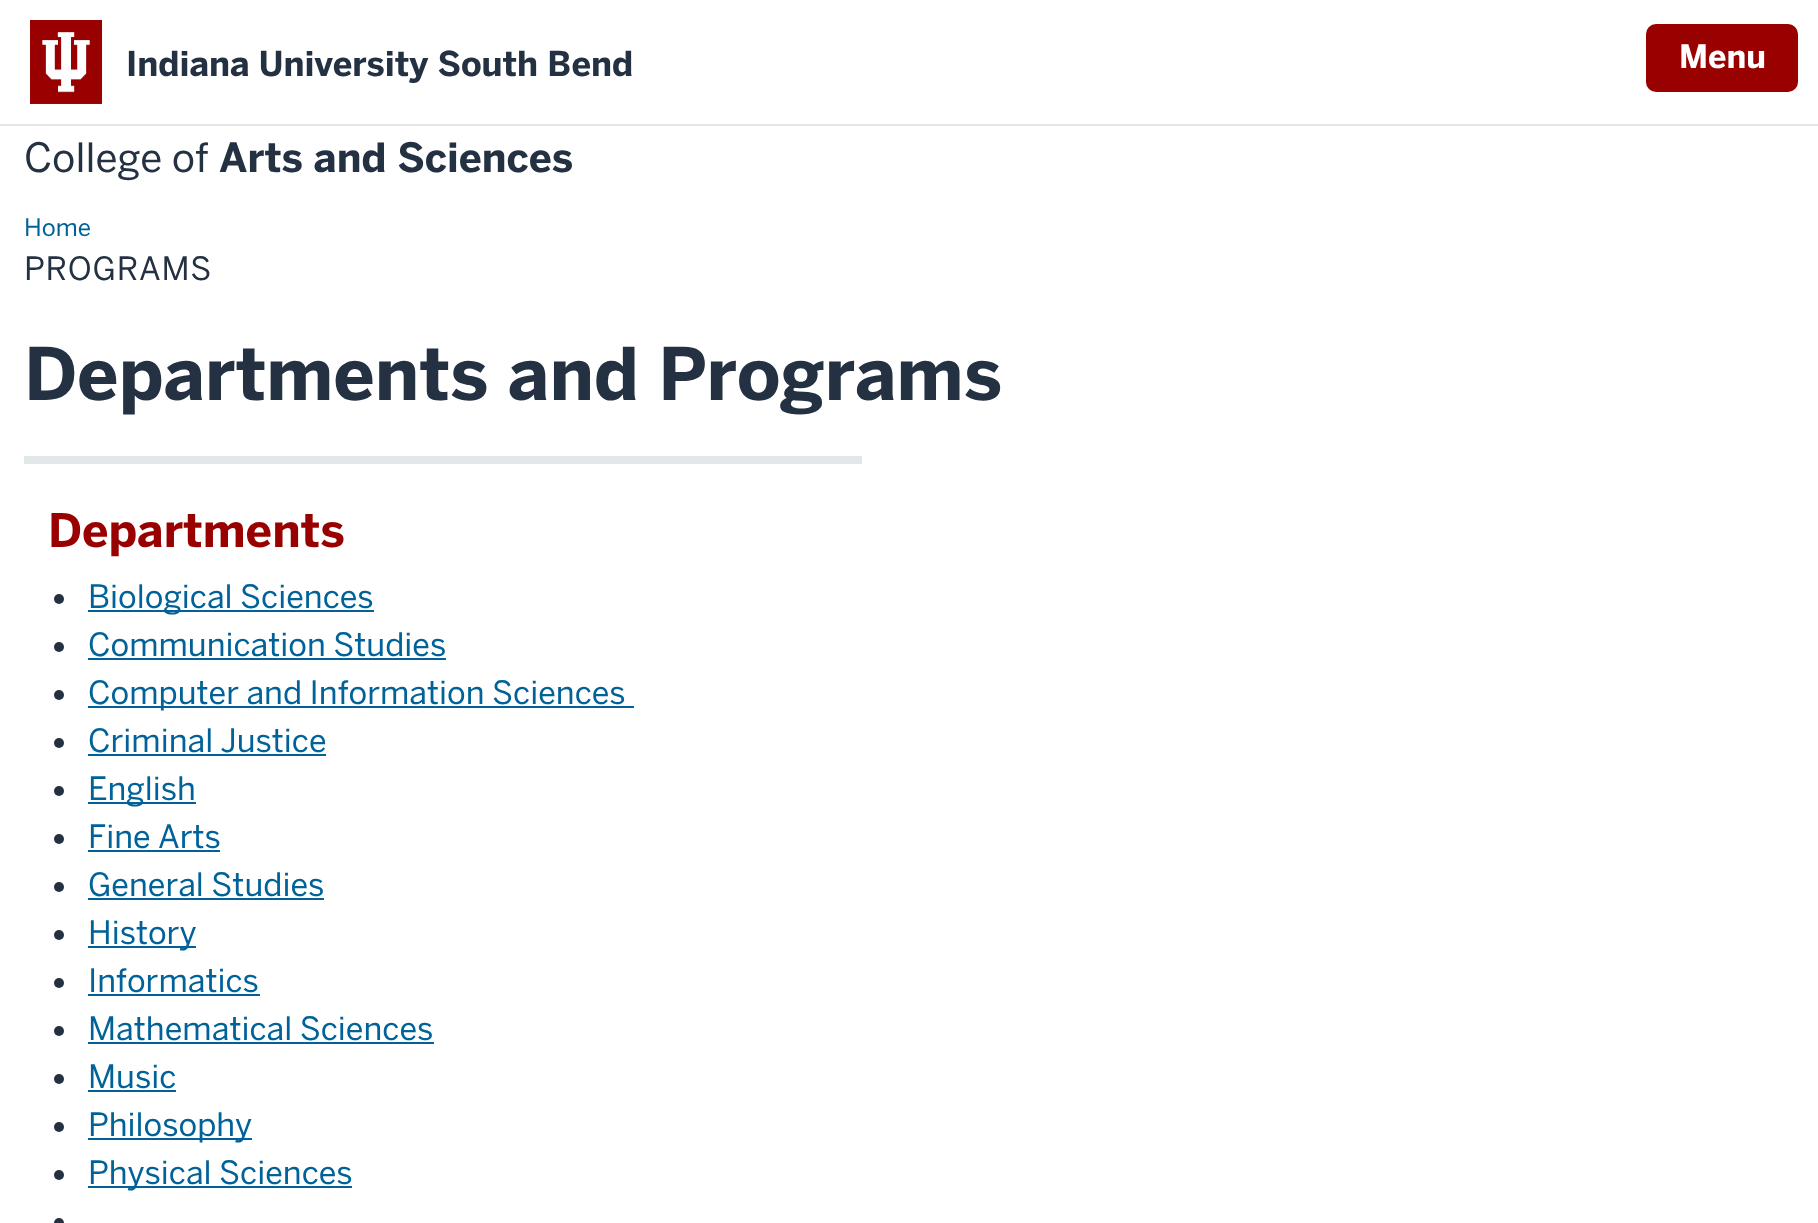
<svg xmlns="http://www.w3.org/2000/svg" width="1818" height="1223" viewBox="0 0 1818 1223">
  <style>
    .t1 { font: bold 34px 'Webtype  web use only'; fill: #243142; }
    .t2 { font: bold 32px 'Webtype  web use only'; fill: #fff; }
    .t3 { font: 40px 'Webtype  web use only'; fill: #243142; }
    .t4 { font: bold 40px 'Webtype  web use only'; fill: #243142; }
    .t5 { font: 24px 'Webtype  web use only'; fill: #006298; }
    .t6 { font: 32px 'Webtype  web use only'; letter-spacing: 0.75px; fill: #243142; }
    .t7 { font: bold 72px 'Webtype  web use only'; fill: #243142; }
    .t8 { font: bold 46px 'Webtype  web use only'; fill: #900; }
    .t9 { font: 32px 'Webtype  web use only'; fill: #006298; }
  </style>
  <rect width="100%" height="100%" fill="#fff"/>
  <rect x="0" y="124" width="1818" height="2" fill="#e2e7e9"/>
  <image x="30" y="20" width="72" height="84" href="images/1.png"/>
  <text x="126" y="76" class="t1">Indiana University South Bend</text>
  <rect x="1646" y="24" width="152" height="68" rx="10" fill="#900"/>
  <text x="1679" y="68" class="t2">Menu</text>
  <text x="24" y="172" class="t3">College of</text>
  <text x="219" y="172" class="t4">Arts and Sciences</text>
  <text x="24" y="236" class="t5">Home</text>
  <text x="24" y="280" class="t6">PROGRAMS</text>
  <text x="24" y="400" class="t7">Departments and Programs</text>
  <rect x="24" y="456" width="838" height="8" fill="#e2e7e9"/>
  <text x="48" y="547" class="t8">Departments</text>
  <circle cx="59" cy="599" r="5" fill="#243142"/>
  <rect x="88" y="610" width="286" height="2" fill="#006298"/>
  <text x="88" y="608" class="t9">Biological Sciences</text>
  <circle cx="59" cy="647" r="5" fill="#243142"/>
  <text x="88" y="656" class="t9">Communication Studies</text>
  <rect x="88" y="658" width="358" height="2" fill="#006298"/>
  <circle cx="59" cy="695" r="5" fill="#243142"/>
  <rect x="88" y="706" width="546" height="2" fill="#006298"/>
  <text x="88" y="704" class="t9">Computer and Information Sciences</text>
  <circle cx="59" cy="743" r="5" fill="#243142"/>
  <text x="88" y="752" class="t9">Criminal Justice</text>
  <rect x="88" y="754" width="238" height="2" fill="#006298"/>
  <circle cx="59" cy="791" r="5" fill="#243142"/>
  <rect x="88" y="802" width="108" height="2" fill="#006298"/>
  <text x="88" y="800" class="t9">English</text>
  <circle cx="59" cy="839" r="5" fill="#243142"/>
  <text x="88" y="848" class="t9">Fine Arts</text>
  <rect x="88" y="850" width="132" height="2" fill="#006298"/>
  <circle cx="59" cy="887" r="5" fill="#243142"/>
  <text x="88" y="896" class="t9">General Studies</text>
  <rect x="88" y="898" width="236" height="2" fill="#006298"/>
  <circle cx="59" cy="935" r="5" fill="#243142"/>
  <rect x="88" y="946" width="108" height="2" fill="#006298"/>
  <text x="88" y="944" class="t9">History</text>
  <circle cx="59" cy="983" r="5" fill="#243142"/>
  <text x="88" y="992" class="t9">Informatics</text>
  <rect x="88" y="994" width="172" height="2" fill="#006298"/>
  <circle cx="59" cy="1031" r="5" fill="#243142"/>
  <text x="88" y="1040" class="t9">Mathematical Sciences</text>
  <rect x="88" y="1042" width="346" height="2" fill="#006298"/>
  <circle cx="59" cy="1079" r="5" fill="#243142"/>
  <text x="88" y="1088" class="t9">Music</text>
  <rect x="88" y="1090" width="88" height="2" fill="#006298"/>
  <circle cx="59" cy="1127" r="5" fill="#243142"/>
  <rect x="88" y="1138" width="164" height="2" fill="#006298"/>
  <text x="88" y="1136" class="t9">Philosophy</text>
  <circle cx="59" cy="1175" r="5" fill="#243142"/>
  <rect x="88" y="1186" width="264" height="2" fill="#006298"/>
  <text x="88" y="1184" class="t9">Physical Sciences</text>
  <circle cx="59" cy="1223" r="5" fill="#243142"/>
</svg>
